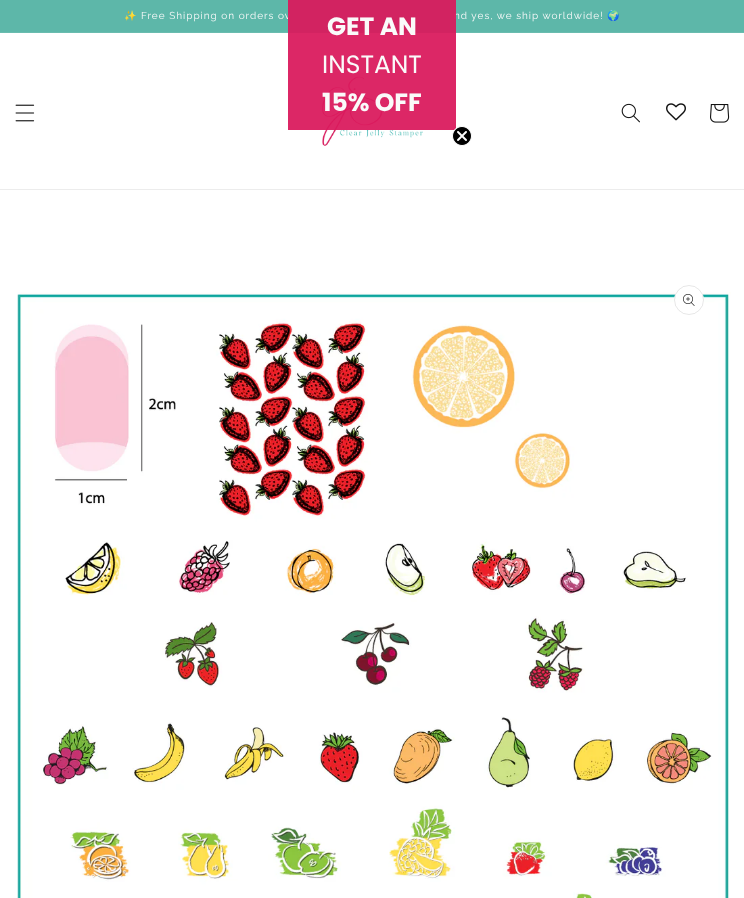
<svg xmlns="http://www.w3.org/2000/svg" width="744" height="898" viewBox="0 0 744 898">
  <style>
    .t1 { font: 10px Noto Color Emoji; letter-spacing: 1px; fill: #fafafa; }
    .t2 { font: 10px Raleway; letter-spacing: 1px; fill: #fafafa; }
    .t3 { font: bold 25px Poppins; fill: #fafafa; }
    .t4 { font: 25px Poppins; fill: #fafafa; }
  </style>
  <rect width="100%" height="100%" fill="#fff"/>
  <rect x="0" y="0" width="744" height="32" fill="#5db7a9"/>
  <rect x="0" y="32" width="744" height="1" fill="#6abcaf"/>
  <text x="124" y="19" class="t1">✨</text>
  <text x="141" y="19" class="t2">Free Shipping on orders ov</text>
  <text x="454" y="19" class="t2">nd yes, we ship worldwide!</text>
  <text x="607" y="19" class="t1">🌍</text>
  <image x="322" y="76" width="101" height="70" href="images/3.png"/>
  <rect x="288" y="0" width="168" height="130" fill="#da195cf0"/>
  <text x="327" y="35" class="t3">GET AN</text>
  <text x="322" y="73" class="t4">INSTANT</text>
  <text x="322" y="111" class="t3">15% OFF</text>
  <image x="452" y="126" width="20" height="20" href="images/1.png"/>
  <rect x="0" y="189" width="744" height="1" fill="#ececec"/>
  <image x="15" y="104" width="20" height="18" href="images/2.png"/>
  <image x="621" y="103" width="19" height="20" href="images/4.png"/>
  <image x="666" y="103" width="20" height="18" href="images/5.png"/>
  <image x="710" y="104" width="20" height="19" href="images/6.png"/>
  <image x="17" y="292" width="714" height="606" href="images/8.png"/>
  <circle cx="689" cy="300" r="15" fill="#fff"/>
  <circle cx="689" cy="300" r="14.5" fill="none" stroke="#1212121a"/>
  <image x="683" y="294" width="12" height="12" href="images/7.png"/>
</svg>
